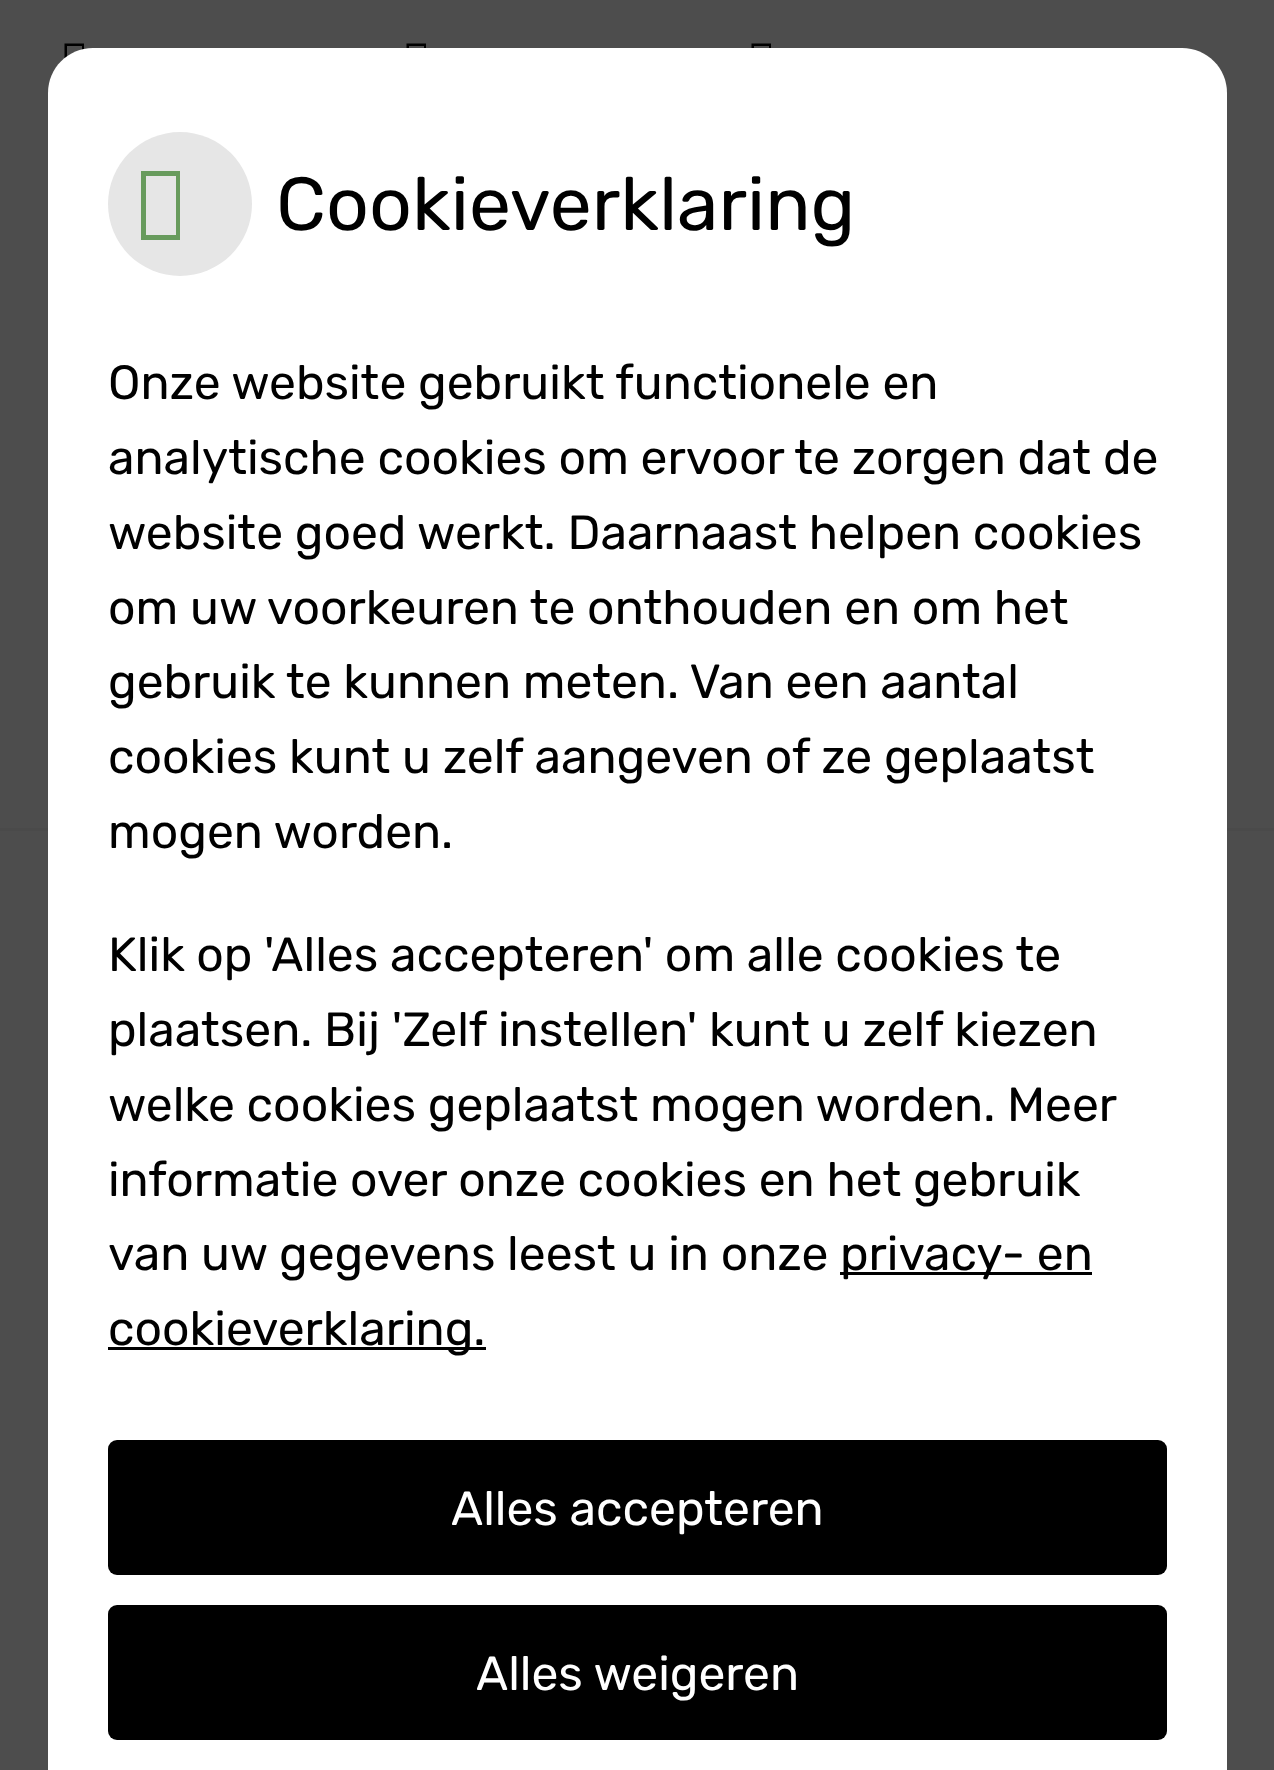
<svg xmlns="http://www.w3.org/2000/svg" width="1274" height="1770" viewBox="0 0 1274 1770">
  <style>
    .t1 { font: 75px Rubik; fill: #000; }
    .t2 { font: 48px Rubik; fill: #000; }
    .t3 { font: 48px Rubik; fill: #fff; }
  </style>
  <rect width="100%" height="100%" fill="#4d4d4d"/>
  <path d="M64.5 78V43.5H84V78ZM67 75.5H82V46H67Z" fill="#000"/>
  <path d="M406.5 78V43.5H426V78ZM409 75.5H424V46H409Z" fill="#000"/>
  <path d="M751.5 78V43.5H771V78ZM754 75.5H769V46H754Z" fill="#000"/>
  <rect x="0" y="828" width="1274" height="3" fill="#4a4a4a"/>
  <path d="M93 48H1182C1207 48 1227 68 1227 93V1770H48V93C48 68 68 48 93 48Z" fill="#fff"/>
  <circle cx="180" cy="204" r="72" fill="#e6e6e6"/>
  <path d="M141 240V171H180V240ZM146 235H176V176H146Z" fill="#689b5d"/>
  <text x="276" y="230" class="t1">Cookieverklaring</text>
  <text x="108" y="399" class="t2">Onze website gebruikt functionele en</text>
  <text x="108" y="474" class="t2">analytische cookies om ervoor te zorgen dat de</text>
  <text x="108" y="549" class="t2">website goed werkt. Daarnaast helpen cookies</text>
  <text x="108" y="624" class="t2">om uw voorkeuren te onthouden en om het</text>
  <text x="108" y="698" class="t2">gebruik te kunnen meten. Van een aantal</text>
  <text x="108" y="773" class="t2">cookies kunt u zelf aangeven of ze geplaatst</text>
  <text x="108" y="848" class="t2">mogen worden.</text>
  <text x="108" y="971" class="t2">Klik op 'Alles accepteren' om alle cookies te</text>
  <text x="108" y="1046" class="t2">plaatsen. Bij 'Zelf instellen' kunt u zelf kiezen</text>
  <text x="108" y="1121" class="t2">welke cookies geplaatst mogen worden. Meer</text>
  <text x="108" y="1196" class="t2">informatie over onze cookies en het gebruik</text>
  <text x="108" y="1270" class="t2">van uw gegevens leest u in onze</text>
  <rect x="840" y="1272" width="252" height="3" fill="#000"/>
  <text x="840" y="1270" class="t2">privacy- en</text>
  <rect x="108" y="1347" width="378" height="3" fill="#000"/>
  <text x="108" y="1345" class="t2">cookieverklaring.</text>
  <rect x="108" y="1440" width="1059" height="135" rx="9" fill="#000"/>
  <text x="451" y="1525" class="t3">Alles accepteren</text>
  <rect x="108" y="1605" width="1059" height="135" rx="9" fill="#000"/>
  <text x="476" y="1690" class="t3">Alles weigeren</text>
</svg>
